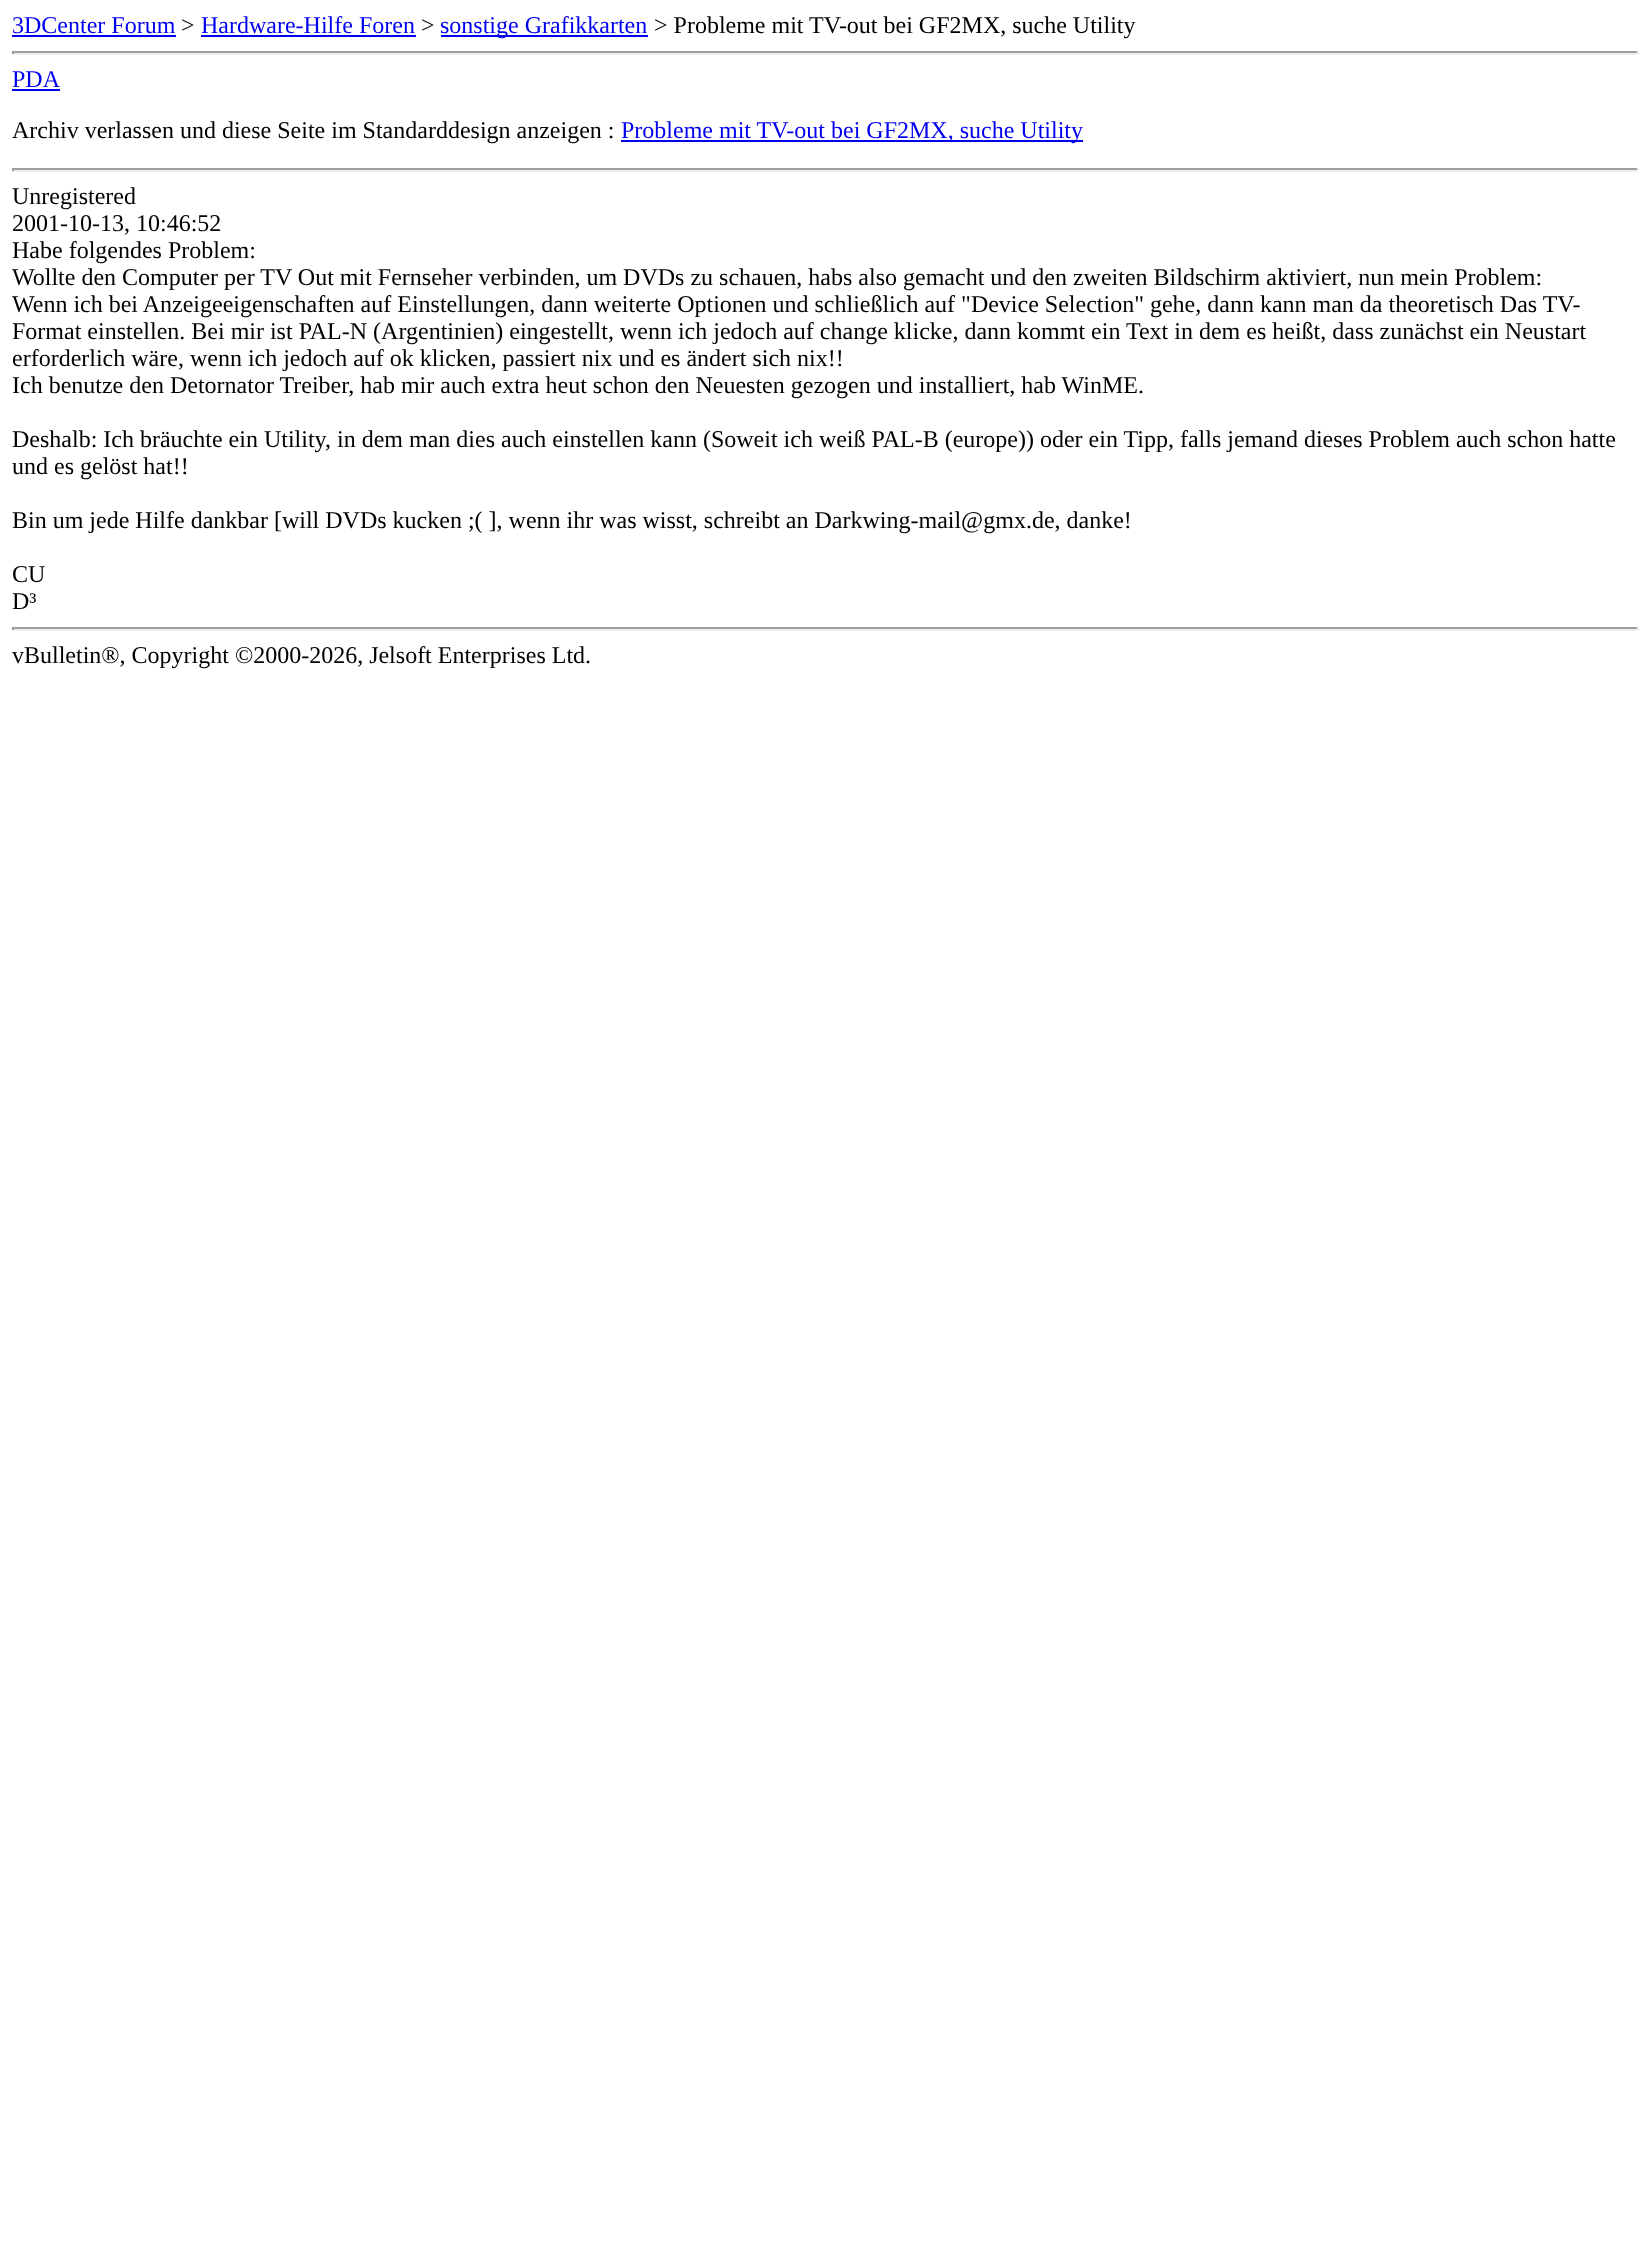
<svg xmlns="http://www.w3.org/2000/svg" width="1650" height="2242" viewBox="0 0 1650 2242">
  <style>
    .t1 { font: 24px Liberation Serif; fill: #00e; }
    .t2 { font: 24px Liberation Serif; fill: #000; }
  </style>
  <rect width="100%" height="100%" fill="#fff"/>
  <text x="12" y="33" class="t1">3DCenter Forum</text>
  <rect x="12" y="35" width="164" height="2" fill="#00e"/>
  <text x="181" y="33" class="t2">&gt;</text>
  <text x="201" y="33" class="t1">Hardware-Hilfe Foren</text>
  <rect x="201" y="35" width="215" height="2" fill="#00e"/>
  <text x="421" y="33" class="t2">&gt;</text>
  <rect x="441" y="35" width="207" height="2" fill="#00e"/>
  <text x="440" y="33" class="t1">sonstige Grafikkarten</text>
  <text x="654" y="33" class="t2">&gt; Probleme mit TV-out bei GF2MX, suche Utility</text>
  <rect x="12" y="51" width="1626" height="2" fill="#9f9f9f"/>
  <rect x="1637" y="51" width="2" height="3" fill="#eee"/>
  <rect x="12" y="53" width="1626" height="2" fill="#eee"/>
  <rect x="12" y="51" width="2" height="3" fill="#9f9f9f"/>
  <text x="12" y="87" class="t1">PDA</text>
  <rect x="12" y="89" width="48" height="2" fill="#00e"/>
  <text x="12" y="138" class="t2">Archiv verlassen und diese Seite im Standarddesign anzeigen :</text>
  <rect x="621" y="140" width="462" height="2" fill="#00e"/>
  <text x="621" y="138" class="t1">Probleme mit TV-out bei GF2MX, suche Utility</text>
  <rect x="12" y="168" width="1626" height="2" fill="#9f9f9f"/>
  <rect x="1637" y="168" width="2" height="3" fill="#eee"/>
  <rect x="12" y="170" width="1626" height="2" fill="#eee"/>
  <rect x="12" y="168" width="2" height="3" fill="#9f9f9f"/>
  <text x="12" y="204" class="t2">Unregistered</text>
  <text x="12" y="231" class="t2">2001-10-13, 10:46:52</text>
  <text x="12" y="258" class="t2">Habe folgendes Problem:</text>
  <text x="12" y="285" class="t2">Wollte den Computer per TV Out mit Fernseher verbinden, um DVDs zu schauen, habs also gemacht und den zweiten Bildschirm aktiviert, nun mein Problem:</text>
  <text x="12" y="312" class="t2">Wenn ich bei Anzeigeeigenschaften auf Einstellungen, dann weiterte Optionen und schließlich auf "Device Selection" gehe, dann kann man da theoretisch Das TV-</text>
  <text x="12" y="339" class="t2">Format einstellen. Bei mir ist PAL-N (Argentinien) eingestellt, wenn ich jedoch auf change klicke, dann kommt ein Text in dem es heißt, dass zunächst ein Neustart</text>
  <text x="12" y="366" class="t2">erforderlich wäre, wenn ich jedoch auf ok klicken, passiert nix und es ändert sich nix!!</text>
  <text x="12" y="393" class="t2">Ich benutze den Detornator Treiber, hab mir auch extra heut schon den Neuesten gezogen und installiert, hab WinME.</text>
  <text x="12" y="447" class="t2">Deshalb: Ich bräuchte ein Utility, in dem man dies auch einstellen kann (Soweit ich weiß PAL-B (europe)) oder ein Tipp, falls jemand dieses Problem auch schon hatte</text>
  <text x="12" y="474" class="t2">und es gelöst hat!!</text>
  <text x="12" y="528" class="t2">Bin um jede Hilfe dankbar [will DVDs kucken ;( ], wenn ihr was wisst, schreibt an Darkwing-mail@gmx.de, danke!</text>
  <text x="12" y="582" class="t2">CU</text>
  <text x="12" y="609" class="t2">D³</text>
  <rect x="12" y="627" width="1626" height="2" fill="#9f9f9f"/>
  <rect x="1637" y="627" width="2" height="3" fill="#eee"/>
  <rect x="12" y="629" width="1626" height="2" fill="#eee"/>
  <rect x="12" y="627" width="2" height="3" fill="#9f9f9f"/>
  <text x="12" y="663" class="t2">vBulletin®, Copyright ©2000-2026, Jelsoft Enterprises Ltd.</text>
</svg>
